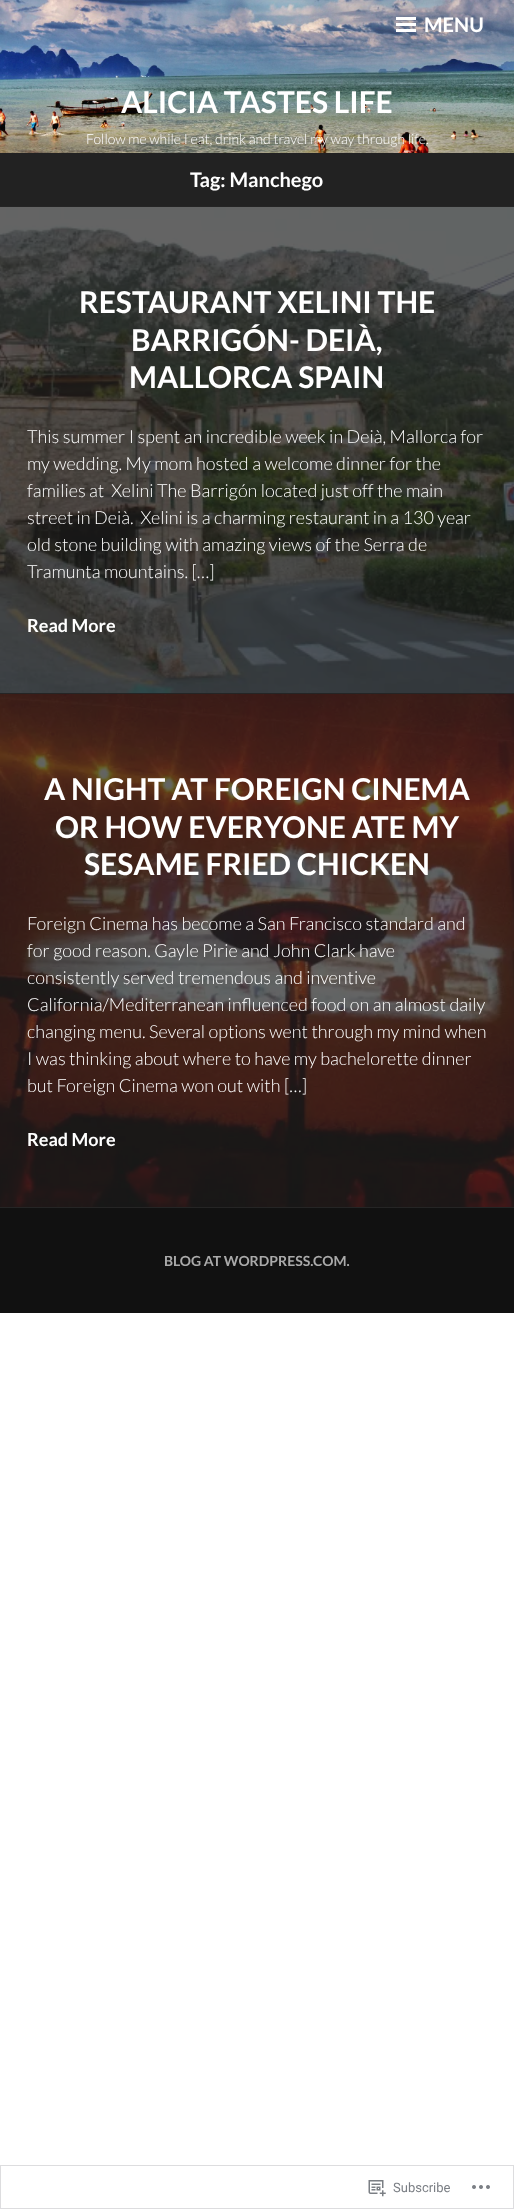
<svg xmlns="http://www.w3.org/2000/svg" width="514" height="2209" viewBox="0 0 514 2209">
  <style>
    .t1 { font: bold 20px Lato; fill: #fff; }
    .t2 { font: bold 30px Lato; fill: #fff; }
    .t3 { font: 300 14px Lato; fill: #fff; }
    .t4 { font: 300 18px Lato; fill: #fff; }
    .t5 { font: bold 18px Lato; fill: #fff; }
    .t6 { font: bold 14px Lato; fill: #aaa; }
    .t7 { font: 13px Roboto; fill: #7b7f85; }
  </style>
  <rect width="100%" height="100%" fill="#fff"/>
  <image x="0" y="0" width="514" height="153" href="images/1.png"/>
  <rect x="396" y="23" width="20" height="3" fill="#fff"/>
  <rect x="396" y="17" width="20" height="3" fill="#fff"/>
  <rect x="396" y="29" width="20" height="3" fill="#fff"/>
  <text x="424" y="32" class="t1">MENU</text>
  <text x="121" y="113" class="t2">ALICIA TASTES LIFE</text>
  <text x="86" y="144" class="t3">Follow me while I eat, drink and travel my way through life.</text>
  <rect x="0" y="153" width="514" height="53" fill="#222"/>
  <rect x="0" y="206" width="514" height="1" fill="#252525"/>
  <text x="190" y="187" class="t1">Tag: Manchego</text>
  <rect x="0" y="207" width="514" height="486" fill="#222"/>
  <rect x="0" y="693" width="514" height="1" fill="#252525"/>
  <image x="0" y="207" width="514" height="486" href="images/2.png"/>
  <text x="79" y="313" class="t2">RESTAURANT XELINI THE</text>
  <text x="131" y="351" class="t2">BARRIGÓN- DEIÀ,</text>
  <text x="129" y="388" class="t2">MALLORCA SPAIN</text>
  <text x="27" y="443" class="t4">This summer I spent an incredible week in Deià, Mallorca for</text>
  <text x="27" y="470" class="t4">my wedding. My mom hosted a welcome dinner for the</text>
  <text x="27" y="497" class="t4" xml:space="preserve">families at  Xelini The Barrigón located just off the main</text>
  <text x="27" y="524" class="t4" xml:space="preserve">street in Deià.  Xelini is a charming restaurant in a 130 year</text>
  <text x="27" y="551" class="t4">old stone building with amazing views of the Serra de</text>
  <text x="27" y="578" class="t4">Tramunta mountains. […]</text>
  <text x="27" y="632" class="t5">Read More</text>
  <rect x="0" y="694" width="514" height="513" fill="#222"/>
  <rect x="0" y="1207" width="514" height="1" fill="#252525"/>
  <image x="0" y="694" width="514" height="513" href="images/3.png"/>
  <text x="44" y="800" class="t2">A NIGHT AT FOREIGN CINEMA</text>
  <text x="55" y="838" class="t2">OR HOW EVERYONE ATE MY</text>
  <text x="84" y="875" class="t2">SESAME FRIED CHICKEN</text>
  <text x="27" y="930" class="t4">Foreign Cinema has become a San Francisco standard and</text>
  <text x="27" y="957" class="t4">for good reason. Gayle Pirie and John Clark have</text>
  <text x="27" y="984" class="t4">consistently served tremendous and inventive</text>
  <text x="27" y="1011" class="t4">California/Mediterranean influenced food on an almost daily</text>
  <text x="27" y="1038" class="t4">changing menu. Several options went through my mind when</text>
  <text x="27" y="1065" class="t4">I was thinking about where to have my bachelorette dinner</text>
  <text x="27" y="1092" class="t4">but Foreign Cinema won out with […]</text>
  <text x="27" y="1146" class="t5">Read More</text>
  <rect x="0" y="1208" width="514" height="105" fill="#111"/>
  <text x="164" y="1266" class="t6">BLOG AT WORDPRESS.COM.</text>
  <rect x="0.5" y="2165.5" width="513" height="43" fill="none" stroke="#dddddf"/>
  <image x="368" y="2180" width="18" height="17" href="images/4.png"/>
  <text x="393" y="2192" class="t7">Subscribe</text>
  <image x="472" y="2185" width="18" height="4" href="images/5.png"/>
</svg>
